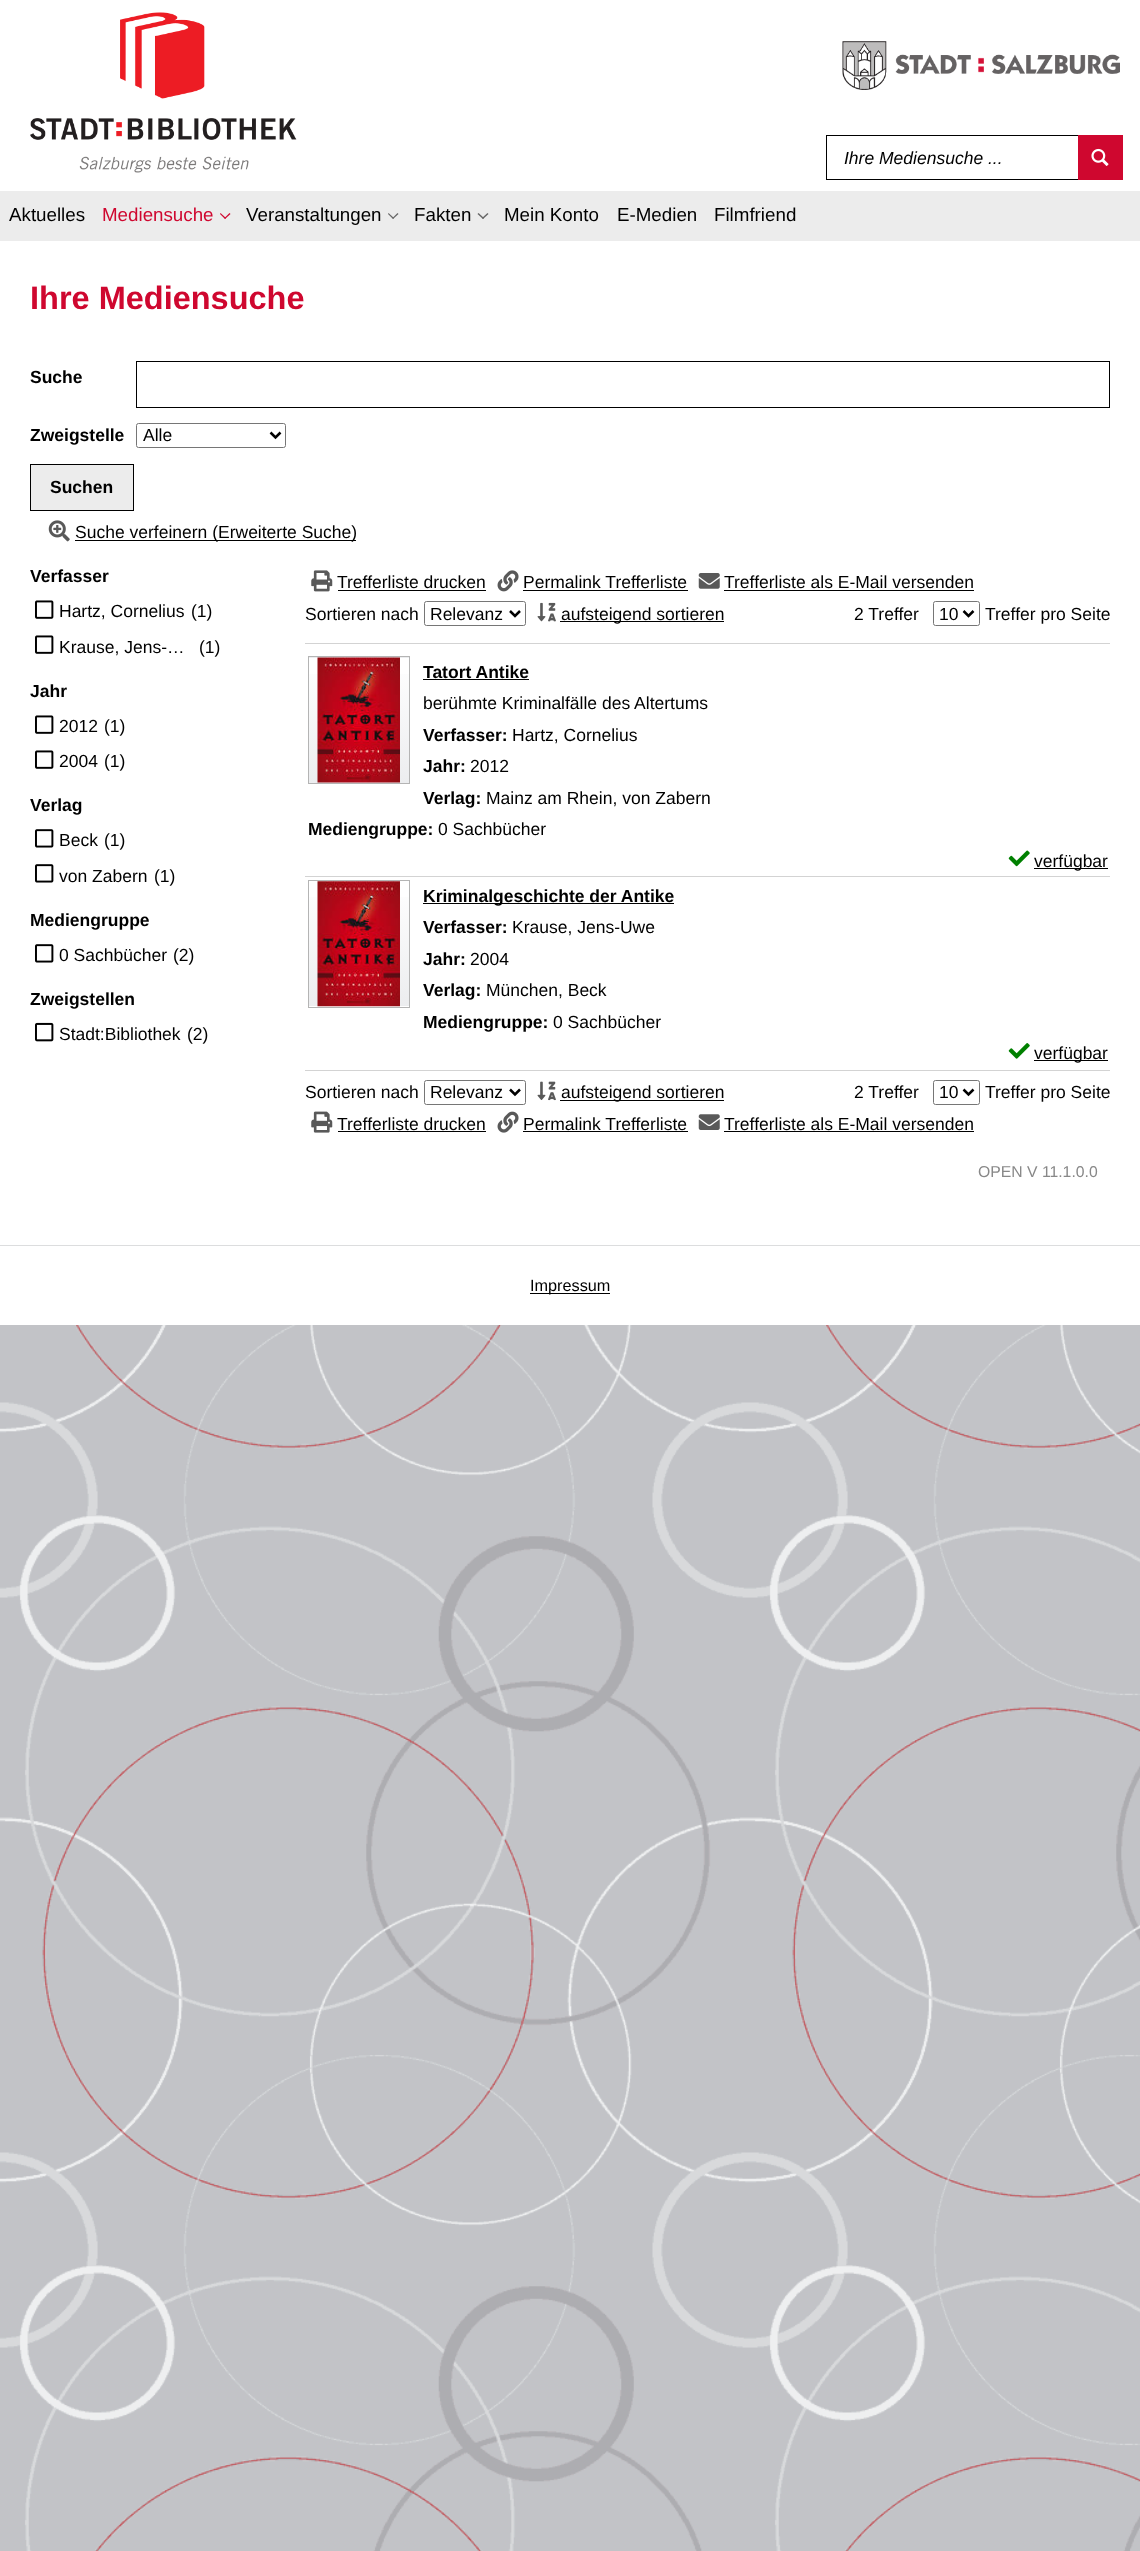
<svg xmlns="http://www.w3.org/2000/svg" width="1140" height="2551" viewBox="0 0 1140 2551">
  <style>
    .t1 { font: italic 17.5px Liberation Sans; fill: #000; }
    .t2 { font: 18.75px Liberation Sans; fill: #000; }
    .t3 { font: 18.75px Liberation Sans; fill: #cf072f; }
    .t4 { font: bold 32.5px Liberation Sans; fill: #cf072f; }
    .t5 { font: bold 17.5px Liberation Sans; fill: #000; }
    .t6 { font: 17.5px Liberation Sans; fill: #000; }
    .t7 { font: 15.75px Liberation Sans; fill: #888; }
    .t8 { font: 16.25px Liberation Sans; fill: #000; }
  </style>
  <defs>
    <linearGradient id="g1" gradientUnits="userSpaceOnUse" x1="309" y1="533" x2="309" y2="658"><stop offset="0" stop-color="#fff"/><stop offset="1" stop-color="#ecedef"/></linearGradient>
    <linearGradient id="g2" gradientUnits="userSpaceOnUse" x1="309" y1="658" x2="309" y2="783"><stop offset="0" stop-color="#fff"/><stop offset="1" stop-color="#ecedef"/></linearGradient>
    <linearGradient id="g3" gradientUnits="userSpaceOnUse" x1="309" y1="881" x2="309" y2="1006"><stop offset="0" stop-color="#fff"/><stop offset="1" stop-color="#ecedef"/></linearGradient>
  </defs>
  <rect width="100%" height="100%" fill="#fff"/>
  <image x="0" y="1325" width="1140" height="1226" href="images/1.png"/>
  <image x="30" y="12" width="267" height="161" href="images/2.png"/>
  <image x="842" y="41" width="278" height="49" href="images/3.png"/>
  <rect x="826.5" y="135.5" width="296" height="44" fill="none" stroke="#000"/>
  <text x="844" y="164" class="t1">Ihre Mediensuche ...</text>
  <rect x="1078" y="135" width="45" height="45" fill="#cf072f"/>
  <image x="1091" y="148" width="18" height="18" href="images/4.png"/>
  <rect x="0" y="191" width="1140" height="50" fill="#ececec"/>
  <text x="9" y="221" class="t2">Aktuelles</text>
  <text x="102" y="221" class="t3">Mediensuche</text>
  <path d="M229.5 213L230.5 214L225 219L224.5 218Z" fill="#cf072f"/>
  <path d="M220.5 213L226 218L225 219L220 214Z" fill="#cf072f"/>
  <text x="246" y="221" class="t2">Veranstaltungen</text>
  <path d="M397.5 213L398.5 214L393 219L392.5 218Z" fill="#666"/>
  <path d="M388.5 213L394 218L393 219L388 214Z" fill="#666"/>
  <text x="414" y="221" class="t2">Fakten</text>
  <path d="M487.5 213L488.5 214L483 219L482 218Z" fill="#666"/>
  <path d="M478.5 213L484 218L483 219L477.5 214Z" fill="#666"/>
  <text x="504" y="221" class="t2">Mein Konto</text>
  <text x="617" y="221" class="t2">E-Medien</text>
  <text x="714" y="221" class="t2">Filmfriend</text>
  <text x="30" y="309" class="t4">Ihre Mediensuche</text>
  <text x="30" y="383" class="t5">Suche</text>
  <rect x="136.5" y="361.5" width="973" height="46" fill="none" stroke="#000"/>
  <text x="30" y="441" class="t5">Zweigstelle</text>
  <rect x="136.5" y="423.5" width="149" height="24" rx="2" fill="none" stroke="#767676"/>
  <path d="M270.5 432.5L275.5 437.5L280.5 432.5" fill="none" stroke="#000" stroke-width="2.5"/>
  <text x="143" y="441" class="t6">Alle</text>
  <rect x="30.5" y="464.5" width="103" height="46" fill="#ececec" stroke="#000"/>
  <text x="50" y="493" class="t5">Suchen</text>
  <image x="48" y="520" width="22" height="22" href="images/5.png"/>
  <rect x="75" y="540" width="281" height="1" fill="#000"/>
  <text x="75" y="538" class="t6">Suche verfeinern (Erweiterte Suche)</text>
  <text x="30" y="582" class="t5">Verfasser</text>
  <image x="35" y="600" width="19" height="19" href="images/6.png"/>
  <text x="59" y="617" class="t6">Hartz, Cornelius</text>
  <text x="191" y="617" class="t6">(1)</text>
  <image x="35" y="635" width="19" height="19" href="images/6.png"/>
  <text x="59" y="653" class="t6">Krause, Jens-…</text>
  <text x="199" y="653" class="t6">(1)</text>
  <text x="30" y="697" class="t5">Jahr</text>
  <image x="35" y="715" width="19" height="19" href="images/6.png"/>
  <text x="59" y="732" class="t6">2012</text>
  <text x="104" y="732" class="t6">(1)</text>
  <image x="35" y="750" width="19" height="19" href="images/6.png"/>
  <text x="59" y="767" class="t6">2004</text>
  <text x="104" y="767" class="t6">(1)</text>
  <text x="30" y="811" class="t5">Verlag</text>
  <image x="35" y="829" width="19" height="19" href="images/7.png"/>
  <text x="59" y="846" class="t6">Beck</text>
  <text x="104" y="846" class="t6">(1)</text>
  <image x="35" y="864" width="19" height="19" href="images/7.png"/>
  <text x="59" y="882" class="t6">von Zabern</text>
  <text x="154" y="882" class="t6">(1)</text>
  <text x="30" y="926" class="t5">Mediengruppe</text>
  <image x="35" y="944" width="19" height="19" href="images/7.png"/>
  <text x="59" y="961" class="t6">0 Sachbücher</text>
  <text x="173" y="961" class="t6">(2)</text>
  <text x="30" y="1005" class="t5">Zweigstellen</text>
  <image x="35" y="1022" width="19" height="20" href="images/8.png"/>
  <text x="59" y="1040" class="t6">Stadt:Bibliothek</text>
  <text x="187" y="1040" class="t6">(2)</text>
  <image x="311" y="570" width="22" height="22" href="images/9.png"/>
  <text x="337" y="588" class="t6">Trefferliste drucken</text>
  <rect x="338" y="590" width="148" height="1" fill="#000"/>
  <image x="497" y="570" width="22" height="22" href="images/10.png"/>
  <text x="523" y="588" class="t6">Permalink Trefferliste</text>
  <rect x="523" y="590" width="165" height="1" fill="#000"/>
  <image x="698" y="573" width="22" height="16" href="images/11.png"/>
  <text x="724" y="588" class="t6">Trefferliste als E-Mail versenden</text>
  <rect x="724" y="590" width="250" height="1" fill="#000"/>
  <text x="305" y="620" class="t6">Sortieren nach</text>
  <rect x="424.5" y="601.5" width="101" height="24" rx="2" fill="none" stroke="#767676"/>
  <path d="M510 611L515 616L520 611" fill="none" stroke="#000" stroke-width="2.5"/>
  <text x="430" y="620" class="t6">Relevanz</text>
  <image x="537" y="602" width="19" height="20" href="images/12.png"/>
  <rect x="560" y="621" width="164" height="1" fill="#000"/>
  <text x="561" y="620" class="t6">aufsteigend sortieren</text>
  <text x="854" y="620" class="t6">2 Treffer</text>
  <rect x="933.5" y="601.5" width="46" height="24" rx="2" fill="none" stroke="#767676"/>
  <path d="M963.5 611L968.5 616L973.5 611" fill="none" stroke="#000" stroke-width="2.5"/>
  <text x="939" y="620" class="t6">10</text>
  <text x="985" y="620" class="t6">Treffer pro Seite</text>
  <rect x="305" y="643" width="805" height="1" fill="#d3d3d3"/>
  <rect x="308" y="657" width="102" height="1" fill="url(#g1)"/>
  <rect x="309" y="674" width="100" height="109" fill="url(#g2)"/>
  <rect x="308.5" y="656.5" width="101" height="127" fill="none" stroke="#b4b4b4"/>
  <image x="317" y="657" width="83" height="126" href="images/13.png"/>
  <text x="423" y="678" class="t5">Tatort Antike</text>
  <rect x="423" y="679" width="106" height="1" fill="#000"/>
  <text x="423" y="709" class="t6">berühmte Kriminalfälle des Altertums</text>
  <text x="423" y="741" class="t5">Verfasser:</text>
  <text x="512" y="741" class="t6">Hartz, Cornelius</text>
  <text x="423" y="772" class="t5">Jahr:</text>
  <text x="470" y="772" class="t6">2012</text>
  <text x="423" y="804" class="t5">Verlag:</text>
  <text x="486" y="804" class="t6">Mainz am Rhein, von Zabern</text>
  <text x="308" y="835" class="t5">Mediengruppe:</text>
  <text x="438" y="835" class="t6">0 Sachbücher</text>
  <image x="1008" y="850" width="22" height="17" href="images/14.png"/>
  <rect x="1034" y="868" width="74" height="1" fill="#000"/>
  <text x="1034" y="867" class="t6">verfügbar</text>
  <rect x="305" y="876" width="805" height="1" fill="#d3d3d3"/>
  <rect x="309" y="897" width="100" height="109" fill="url(#g3)"/>
  <rect x="308.5" y="880.5" width="101" height="127" fill="none" stroke="#b4b4b4"/>
  <image x="317" y="881" width="83" height="126" href="images/15.png"/>
  <rect x="423" y="903" width="251" height="1" fill="#000"/>
  <text x="423" y="902" class="t5">Kriminalgeschichte der Antike</text>
  <text x="423" y="933" class="t5">Verfasser:</text>
  <text x="512" y="933" class="t6">Krause, Jens-Uwe</text>
  <text x="423" y="965" class="t5">Jahr:</text>
  <text x="470" y="965" class="t6">2004</text>
  <text x="423" y="996" class="t5">Verlag:</text>
  <text x="486" y="996" class="t6">München, Beck</text>
  <text x="423" y="1028" class="t5">Mediengruppe:</text>
  <text x="553" y="1028" class="t6">0 Sachbücher</text>
  <image x="1008" y="1043" width="22" height="16" href="images/16.png"/>
  <rect x="1034" y="1060" width="74" height="1" fill="#000"/>
  <text x="1034" y="1059" class="t6">verfügbar</text>
  <rect x="305" y="1070" width="805" height="1" fill="#d3d3d3"/>
  <text x="305" y="1098" class="t6">Sortieren nach</text>
  <rect x="424.5" y="1080.5" width="101" height="24" rx="2" fill="none" stroke="#767676"/>
  <path d="M510 1089.5L515 1094.5L520 1089.5" fill="none" stroke="#000" stroke-width="2.5"/>
  <text x="430" y="1098" class="t6">Relevanz</text>
  <image x="537" y="1081" width="19" height="20" href="images/17.png"/>
  <rect x="560" y="1100" width="164" height="1" fill="#000"/>
  <text x="561" y="1098" class="t6">aufsteigend sortieren</text>
  <text x="854" y="1098" class="t6">2 Treffer</text>
  <rect x="933.5" y="1080.5" width="46" height="24" rx="2" fill="none" stroke="#767676"/>
  <path d="M963.5 1089.5L968.5 1094.5L973.5 1089.5" fill="none" stroke="#000" stroke-width="2.5"/>
  <text x="939" y="1098" class="t6">10</text>
  <text x="985" y="1098" class="t6">Treffer pro Seite</text>
  <image x="311" y="1111" width="22" height="22" href="images/18.png"/>
  <text x="337" y="1130" class="t6">Trefferliste drucken</text>
  <rect x="338" y="1131" width="148" height="1" fill="#000"/>
  <image x="497" y="1111" width="22" height="22" href="images/19.png"/>
  <text x="523" y="1130" class="t6">Permalink Trefferliste</text>
  <rect x="523" y="1131" width="165" height="1" fill="#000"/>
  <image x="698" y="1114" width="22" height="16" href="images/20.png"/>
  <text x="724" y="1130" class="t6">Trefferliste als E-Mail versenden</text>
  <rect x="724" y="1131" width="250" height="1" fill="#000"/>
  <text x="978" y="1177" class="t7">OPEN V 11.1.0.0</text>
  <rect x="0" y="1245" width="1140" height="1" fill="#dcddde"/>
  <rect x="530" y="1293" width="80" height="1" fill="#000"/>
  <text x="530" y="1291" class="t8">Impressum</text>
</svg>
